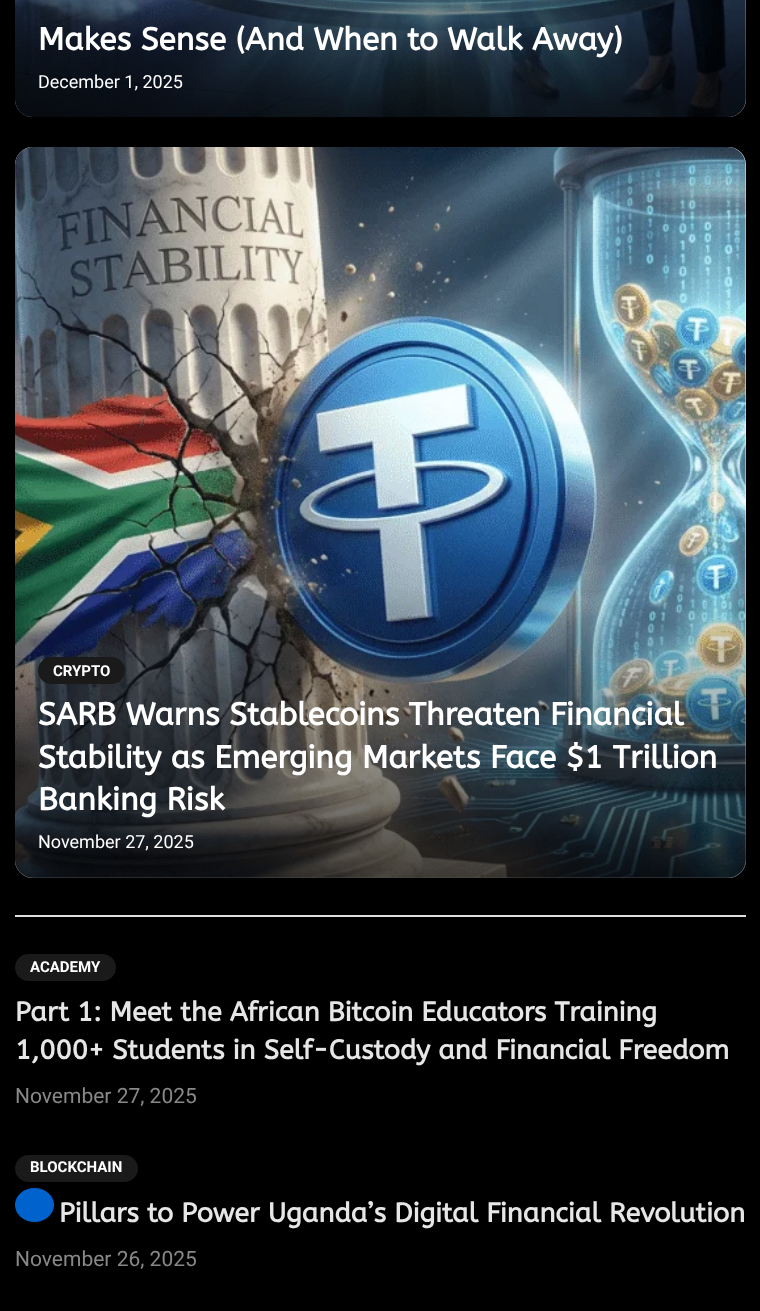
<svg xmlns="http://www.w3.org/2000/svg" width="760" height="1311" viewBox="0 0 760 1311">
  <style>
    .t1 { font: bold 31.5px ABeeZee; fill: #fff; }
    .t2 { font: 18px Roboto; fill: #fff; }
    .t3 { font: bold 15px Roboto; fill: #fff; }
    .t4 { font: bold 27px ABeeZee; fill: #e6e6e6; }
    .t5 { font: 21px Roboto; fill: #888; }
  </style>
  <defs>
    <clipPath id="clip1"><rect x="15" y="-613" width="731" height="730" rx="18"/></clipPath>
    <linearGradient id="g1" gradientUnits="userSpaceOnUse" x1="380" y1="-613" x2="380" y2="117"><stop offset="0.6" stop-color="#000" stop-opacity="0"/><stop offset="1" stop-color="#000" stop-opacity="0.7"/></linearGradient>
    <clipPath id="clip2"><rect x="15" y="147" width="731" height="731" rx="18"/></clipPath>
    <linearGradient id="g2" gradientUnits="userSpaceOnUse" x1="380" y1="147" x2="380" y2="878"><stop offset="0.6" stop-color="#000" stop-opacity="0"/><stop offset="1" stop-color="#000" stop-opacity="0.7"/></linearGradient>
  </defs>
  <rect width="100%" height="100%" fill="#000"/>
  <g clip-path="url(#clip1)">
    <rect x="14" y="-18" width="733" height="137" rx="18" fill="#f5f5f5"/>
  </g>
  <image x="15" y="0" width="731" height="117" href="images/1.png"/>
  <rect x="15" y="-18" width="731" height="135" rx="18" fill="url(#g1)"/>
  <text x="38" y="50" class="t1">Makes Sense (And When to Walk Away)</text>
  <text x="38" y="88" class="t2">December 1, 2025</text>
  <g clip-path="url(#clip2)">
    <rect x="14" y="146" width="733" height="733" rx="18" fill="#f5f5f5"/>
  </g>
  <image x="15" y="147" width="731" height="731" href="images/2.png"/>
  <rect x="15" y="147" width="731" height="731" rx="18" fill="url(#g2)"/>
  <rect x="38" y="657" width="87" height="27" rx="13.5" fill="#1a1a1a"/>
  <text x="53" y="676" class="t3">CRYPTO</text>
  <text x="38" y="725" class="t1">SARB Warns Stablecoins Threaten Financial</text>
  <text x="38" y="768" class="t1">Stability as Emerging Markets Face $1 Trillion</text>
  <text x="38" y="810" class="t1">Banking Risk</text>
  <text x="38" y="848" class="t2">November 27, 2025</text>
  <rect x="15" y="915" width="731" height="2" fill="#dedede"/>
  <rect x="15" y="954" width="101" height="27" rx="13.5" fill="#1a1a1a"/>
  <text x="30" y="972" class="t3">ACADEMY</text>
  <text x="15" y="1021" class="t4">Part 1: Meet the African Bitcoin Educators Training</text>
  <text x="15" y="1059" class="t4">1,000+ Students in Self-Custody and Financial Freedom</text>
  <text x="15" y="1103" class="t5">November 27, 2025</text>
  <rect x="15" y="1155" width="123" height="27" rx="13.5" fill="#1a1a1a"/>
  <text x="30" y="1172" class="t3">BLOCKCHAIN</text>
  <text x="59" y="1222" class="t4">Pillars to Power Uganda’s Digital Financial Revolution</text>
  <text x="15" y="1266" class="t5">November 26, 2025</text>
  <ellipse cx="34.5" cy="1205" rx="19.5" ry="17" fill="#0062cc"/>
</svg>
